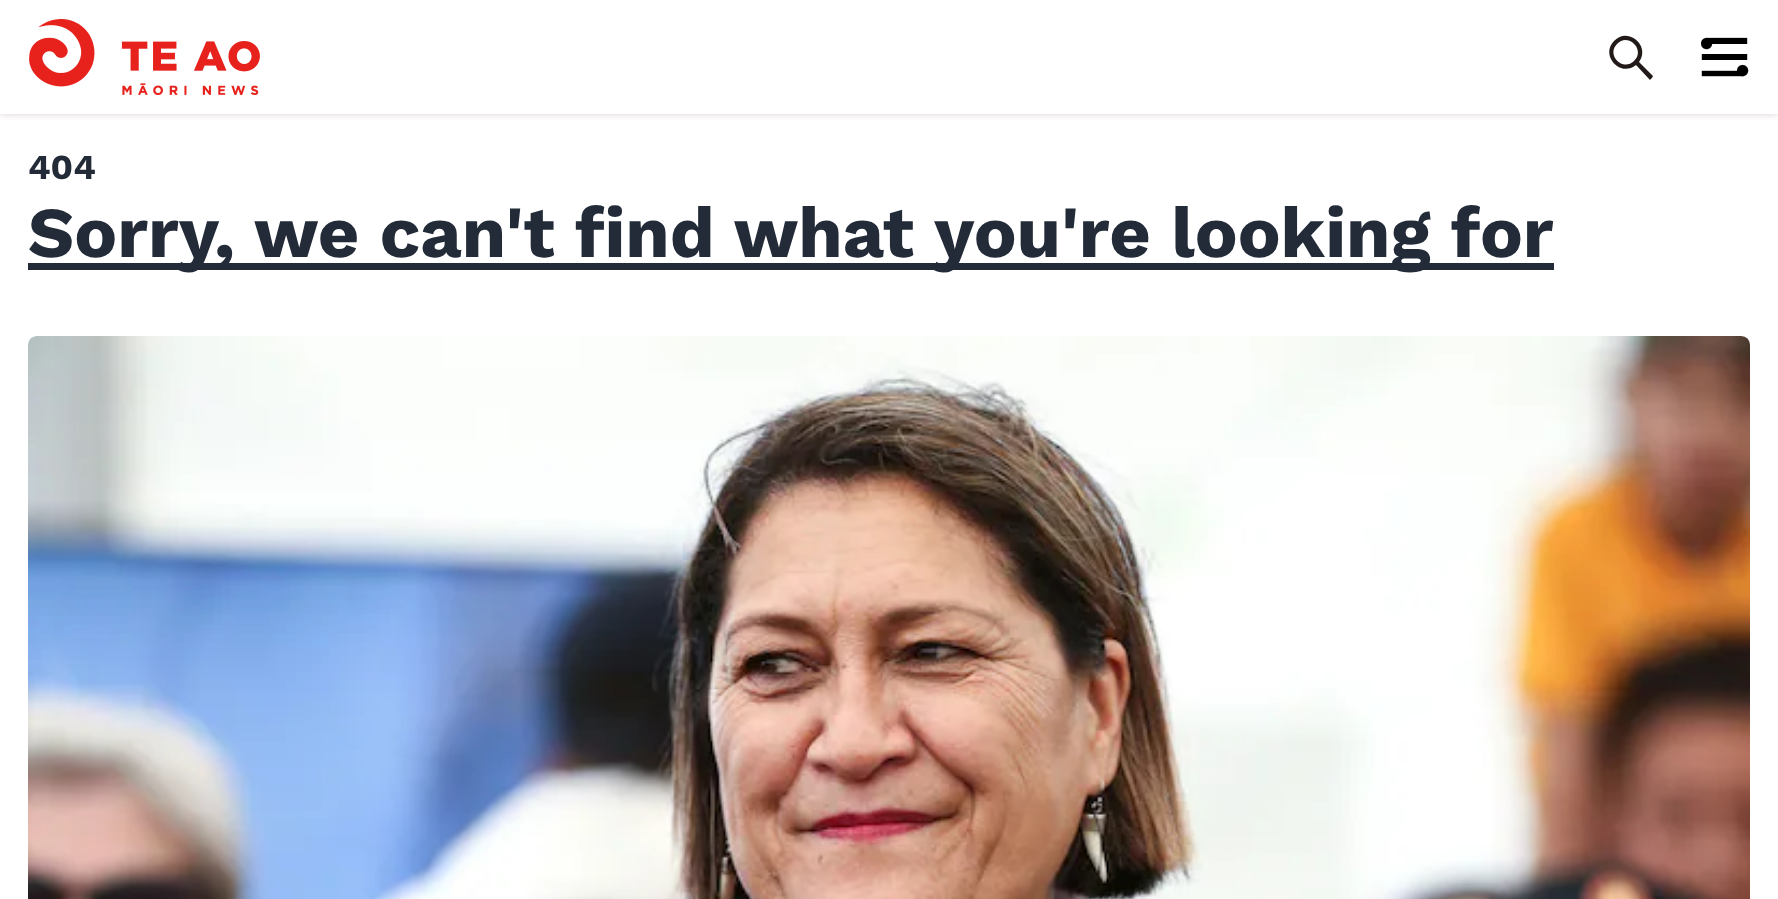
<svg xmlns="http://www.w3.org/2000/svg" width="1778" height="899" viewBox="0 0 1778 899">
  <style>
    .t1 { font: bold 35px Work Sans; fill: #232b39; }
    .t2 { font: bold 71.7px Work Sans; fill: #232b39; }
  </style>
  <rect width="100%" height="100%" fill="#fff"/>
  <rect x="0" y="0" width="1778" height="114" fill="#d9d1ce" filter="blur(3.5px)"/>
  <rect x="0" y="0" width="1778" height="114" fill="#fff"/>
  <image x="29" y="19" width="231" height="77" href="images/1.png"/>
  <path d="M1653 76L1639 62C1651 46 1628 26 1614 41C1600 55 1620 78 1636 65L1650 80C1650 80 1653 77 1653 76ZM1634 61C1623 72 1606 55 1617 44C1628 32 1646 50 1634 61Z" fill="#221a19"/>
  <image x="1701" y="37" width="48" height="40" href="images/2.png"/>
  <text x="28" y="179" class="t1">404</text>
  <rect x="28" y="263" width="1526" height="7" fill="#232b39"/>
  <text x="28" y="257" class="t2">Sorry, we can't find what you're looking for</text>
  <image x="28" y="336" width="1722" height="563" href="images/3.png"/>
</svg>
